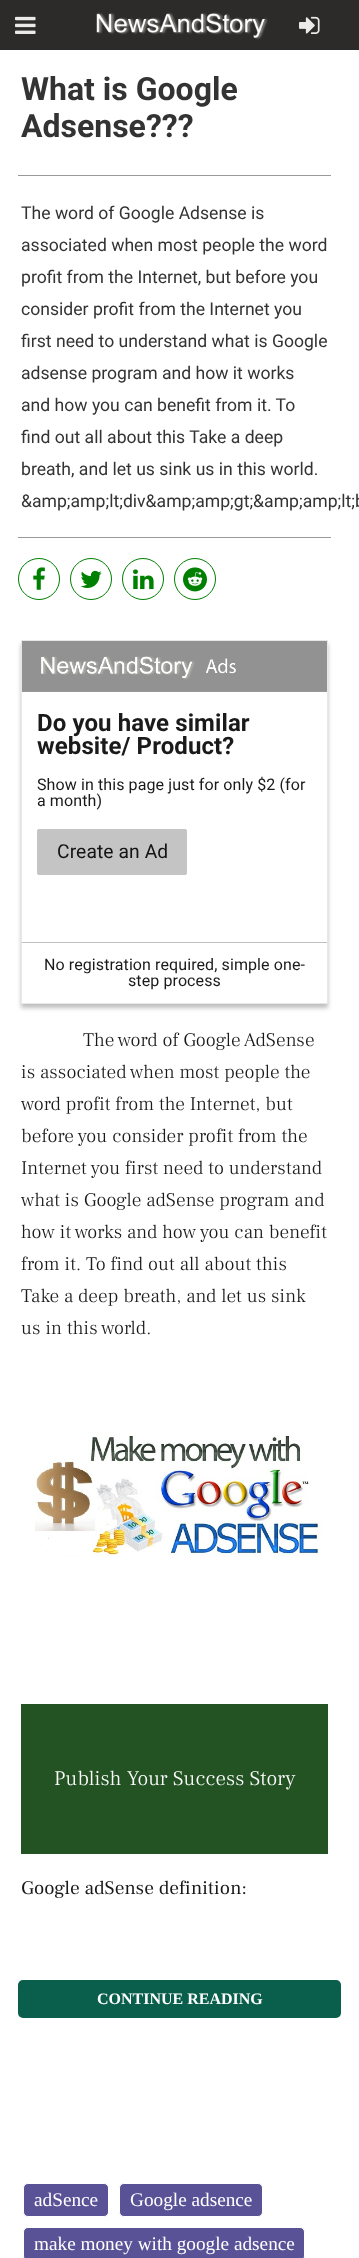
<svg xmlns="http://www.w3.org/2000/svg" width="359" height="2258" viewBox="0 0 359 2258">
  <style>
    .t1 { font: bold 32px Roboto; fill: #333; }
    .t2 { font: 17.6px Roboto; fill: #333; }
    .t3 { font: bold 24px Roboto; letter-spacing: 0.1px; fill: #1a1a1a; }
    .t4 { font: 16px Roboto; letter-spacing: 0.1px; fill: #1a1a1a; }
    .t5 { font: 19.25px Roboto; letter-spacing: 0.1px; fill: #141414; }
    .t6 { font: 300 19.25px Frank Ruhl Libre; letter-spacing: 0.1px; fill: #1a1a1a; }
    .t7 { font: 300 20.75px Frank Ruhl Libre; letter-spacing: 0.1px; fill: #fff; }
    .t8 { font: 19.25px Frank Ruhl Libre; letter-spacing: 0.1px; fill: #1a1a1a; }
    .t9 { font: bold 16px Liberation Serif; fill: #fff; }
    .t10 { font: 19.25px Liberation Serif; fill: #fff; }
  </style>
  <defs>
    <clipPath id="clip1"><path d="M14 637H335V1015H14ZM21 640H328V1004H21Z" clip-rule="evenodd"/></clipPath>
  </defs>
  <rect width="100%" height="100%" fill="#fff"/>
  <rect x="0" y="0" width="359" height="50" fill="#2d2a2a"/>
  <image x="15" y="16" width="21" height="18" href="images/1.png"/>
  <image x="96" y="12" width="172" height="28" href="images/2.png"/>
  <image x="299" y="16" width="21" height="18" href="images/3.png"/>
  <text x="21" y="100" class="t1">What is Google</text>
  <text x="21" y="137" class="t1">Adsense???</text>
  <rect x="18" y="175" width="313" height="1" fill="#999"/>
  <rect x="18" y="537" width="313" height="1" fill="#999"/>
  <text x="21" y="219" class="t2">The word of Google Adsense is</text>
  <text x="21" y="251" class="t2">associated when most people the word</text>
  <text x="21" y="283" class="t2">profit from the Internet, but before you</text>
  <text x="21" y="315" class="t2">consider profit from the Internet you</text>
  <text x="21" y="347" class="t2">first need to understand what is Google</text>
  <text x="21" y="379" class="t2">adsense program and how it works</text>
  <text x="21" y="411" class="t2">and how you can benefit from it. To</text>
  <text x="21" y="443" class="t2">find out all about this Take a deep</text>
  <text x="21" y="475" class="t2">breath, and let us sink us in this world.</text>
  <text x="21" y="507" class="t2">&amp;amp;amp;lt;div&amp;amp;amp;gt;&amp;amp;amp;lt;b</text>
  <circle cx="39" cy="579" r="20.5" fill="none" stroke="#008000"/>
  <image x="33" y="567" width="12" height="23" href="images/4.png"/>
  <circle cx="91" cy="579" r="20.5" fill="none" stroke="#008000"/>
  <image x="80" y="570" width="22" height="18" href="images/5.png"/>
  <circle cx="143" cy="579" r="20.5" fill="none" stroke="#008000"/>
  <image x="133" y="569" width="21" height="21" href="images/6.png"/>
  <circle cx="195" cy="579" r="20.5" fill="none" stroke="#008000"/>
  <image x="183" y="567" width="24" height="25" href="images/7.png"/>
  <g clip-path="url(#clip1)">
    <rect x="21" y="644" width="307" height="364" fill="#00000040" filter="blur(2px)"/>
  </g>
  <rect x="21.5" y="640.5" width="306" height="363" fill="none" stroke="#e8e7e7"/>
  <rect x="22" y="641" width="305" height="50" fill="#929292"/>
  <rect x="22" y="691" width="305" height="1" fill="#999"/>
  <image x="41" y="656" width="195" height="24" href="images/8.png"/>
  <text x="37" y="731" class="t3">Do you have similar</text>
  <text x="37" y="754" class="t3">website/ Product?</text>
  <text x="37" y="790" class="t4">Show in this page just for only $2 (for</text>
  <text x="37" y="806" class="t4">a month)</text>
  <rect x="37" y="829" width="150" height="46" rx="2" fill="#c4c4c4"/>
  <text x="57" y="858" class="t5">Create an Ad</text>
  <rect x="22" y="942" width="305" height="1" fill="#c1bfbf"/>
  <text x="44" y="970" class="t4">No registration required, simple one-</text>
  <text x="128" y="986" class="t4">step process</text>
  <text x="83" y="1046" class="t6">The word of Google AdSense</text>
  <text x="21" y="1078" class="t6">is associated when most people the</text>
  <text x="21" y="1110" class="t6">word profit from the Internet, but</text>
  <text x="21" y="1142" class="t6">before you consider profit from the</text>
  <text x="21" y="1174" class="t6">Internet you first need to understand</text>
  <text x="21" y="1206" class="t6">what is Google adSense program and</text>
  <text x="21" y="1238" class="t6">how it works and how you can benefit</text>
  <text x="21" y="1270" class="t6">from it. To find out all about this</text>
  <text x="21" y="1302" class="t6">Take a deep breath, and let us sink</text>
  <text x="21" y="1334" class="t6">us in this world.</text>
  <image x="32" y="1435" width="291" height="122" href="images/9.png"/>
  <rect x="21" y="1704" width="307" height="150" fill="#235323"/>
  <text x="54" y="1785" class="t7">Publish Your Success Story</text>
  <text x="21" y="1894" class="t8">Google adSense definition:</text>
  <rect x="18" y="1980" width="323" height="38" rx="5" fill="#0a5e4c"/>
  <text x="97" y="2004" class="t9">CONTINUE READING</text>
  <rect x="23.5" y="2183.5" width="85" height="33" rx="4.5" fill="#595297" stroke="#fff"/>
  <text x="34" y="2206" class="t10">adSence</text>
  <rect x="119.5" y="2183.5" width="143" height="33" rx="4.5" fill="#595297" stroke="#fff"/>
  <text x="130" y="2206" class="t10">Google adsence</text>
  <rect x="23.5" y="2227.5" width="281" height="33" rx="4.5" fill="#595297" stroke="#fff"/>
  <text x="34" y="2250" class="t10">make money with google adsence</text>
</svg>
